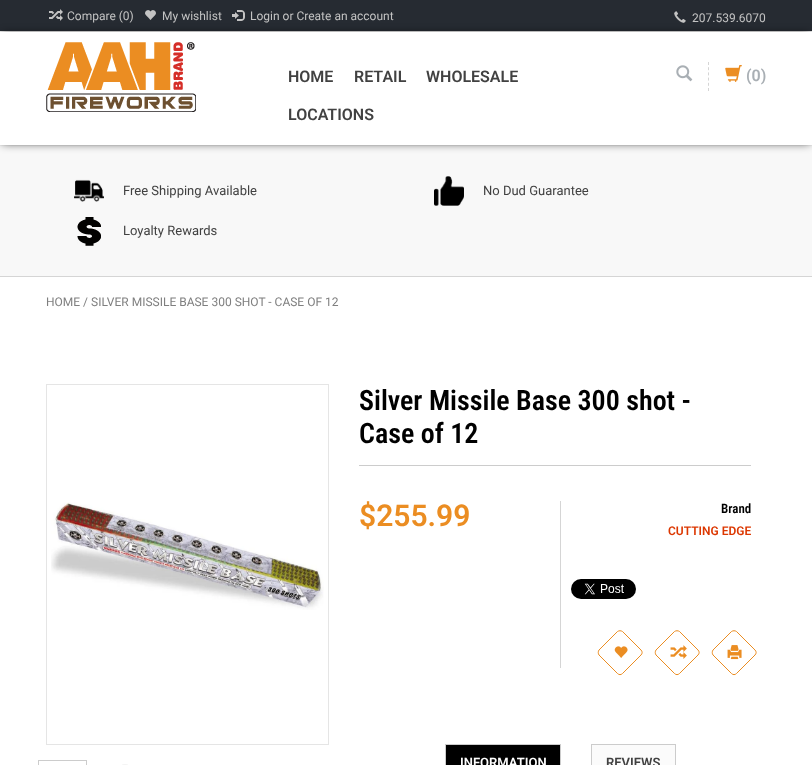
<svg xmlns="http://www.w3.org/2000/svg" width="812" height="765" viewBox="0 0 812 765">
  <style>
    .t1 { font: 12px Roboto; fill: #c3c3c3; }
    .t2 { font: 600 16px Roboto; fill: #414141; }
    .t3 { font: 600 16px Roboto; fill: #a9afb4; }
    .t4 { font: 13px Roboto; fill: #414141; }
    .t5 { font: 12px Roboto; fill: #7f7f7f; }
    .t6 { font: 600 28px Roboto Condensed; fill: #000; }
    .t7 { font: 600 30px Roboto; fill: #eb8d22; }
    .t8 { font: 600 13px Roboto Condensed; fill: #000; }
    .t9 { font: 600 12px Roboto; fill: #dc3700; }
    .t10 { font: 600 13px Roboto; fill: #fff; }
    .t11 { font: 600 13px Roboto; fill: #414141; }
  </style>
  <defs>
    <clipPath id="clip1"><path d="M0 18H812V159H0ZM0 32H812V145H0Z" clip-rule="evenodd"/></clipPath>
  </defs>
  <rect width="100%" height="100%" fill="#fff"/>
  <rect x="0" y="145" width="812" height="1" fill="#f0f0f0"/>
  <rect x="0" y="0" width="812" height="31" fill="#262b32"/>
  <rect x="0" y="31" width="812" height="1" fill="#f0f0f0"/>
  <rect x="0" y="146" width="812" height="130" fill="#f8f8f8"/>
  <g clip-path="url(#clip1)">
    <rect x="2" y="34" width="808" height="109" fill="#000000bf" filter="blur(5px)"/>
  </g>
  <image x="49" y="9" width="14" height="12" href="images/1.png"/>
  <text x="67" y="20" class="t1">Compare (0)</text>
  <image x="145" y="10" width="11" height="10" href="images/2.png"/>
  <text x="162" y="20" class="t1">My wishlist</text>
  <image x="232" y="10" width="13" height="11" href="images/3.png"/>
  <text x="250" y="20" class="t1">Login or Create an account</text>
  <image x="674" y="11" width="12" height="12" href="images/4.png"/>
  <text x="692" y="22" class="t1">207.539.6070</text>
  <image x="46" y="42" width="150" height="70" href="images/5.png"/>
  <text x="288" y="82" class="t2">HOME</text>
  <text x="354" y="82" class="t2">RETAIL</text>
  <text x="426" y="82" class="t2">WHOLESALE</text>
  <text x="288" y="120" class="t2">LOCATIONS</text>
  <image x="676" y="65" width="17" height="17" href="images/6.png"/>
  <path d="M708.5 62V91" fill="none" stroke="#d5d5d5" stroke-dasharray="3 2.2"/>
  <image x="725" y="65" width="17" height="17" href="images/7.png"/>
  <text x="746" y="81" class="t3">(0)</text>
  <rect x="0" y="276" width="812" height="1" fill="#d5d5d5"/>
  <image x="74" y="179" width="30" height="23" href="images/8.png"/>
  <text x="123" y="195" class="t4">Free Shipping Available</text>
  <image x="434" y="176" width="30" height="30" href="images/9.png"/>
  <text x="483" y="195" class="t4">No Dud Guarantee</text>
  <image x="77" y="217" width="24" height="29" href="images/10.png"/>
  <text x="123" y="235" class="t4">Loyalty Rewards</text>
  <text x="46" y="306" class="t5">HOME / SILVER MISSILE BASE 300 SHOT - CASE OF 12</text>
  <rect x="46.5" y="384.5" width="282" height="360" fill="none" stroke="#e5e5e5"/>
  <image x="51" y="502" width="273" height="108" href="images/11.png"/>
  <rect x="38.5" y="760.5" width="48" height="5" fill="none" stroke="#ccc"/>
  <image x="122" y="764" width="6" height="1" href="images/12.png"/>
  <rect x="359" y="465" width="392" height="1" fill="#ccc"/>
  <text x="359" y="410" class="t6">Silver Missile Base 300 shot -</text>
  <text x="359" y="443" class="t6">Case of 12</text>
  <text x="359" y="526" class="t7">$255.99</text>
  <rect x="560" y="501" width="1" height="167" fill="#d5d5d5"/>
  <text x="721" y="513" class="t8">Brand</text>
  <text x="668" y="535" class="t9">CUTTING EDGE</text>
  <image x="571" y="579" width="65" height="20" href="images/13.png"/>
  <path d="M622.5 631.5L641 650C642.5 651.5 642.5 653.5 641 655L622.5 673.5C621 675 619 675 617.5 673.5L599 655C598 653.5 598 651.5 599 650L617.5 631.5C619 630.5 621 630.5 622.5 631.5Z" fill="none" stroke="#eb8d22"/>
  <image x="614" y="646" width="14" height="12" href="images/14.png"/>
  <path d="M679.5 631.5L698 650C699.5 651.5 699.5 653.5 698 655L679.5 673.5C678 675 676 675 674.5 673.5L656 655C655 653.5 655 651.5 656 650L674.5 631.5C676 630.5 678 630.5 679.5 631.5Z" fill="none" stroke="#eb8d22"/>
  <image x="670" y="645" width="17" height="14" href="images/15.png"/>
  <path d="M736.5 631.5L755 650C756.5 651.5 756.5 653.5 755 655L736.5 673.5C735 675 733 675 731.5 673.5L713 655C712 653.5 712 651.5 713 650L731.5 631.5C733 630.5 735 630.5 736.5 631.5Z" fill="none" stroke="#eb8d22"/>
  <image x="727" y="645" width="15" height="15" href="images/16.png"/>
  <rect x="445.5" y="744.5" width="115" height="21" fill="#000" stroke="#ccc"/>
  <text x="460" y="767" class="t10">INFORMATION</text>
  <rect x="591.5" y="744.5" width="84" height="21" fill="#fbfbfb" stroke="#ccc"/>
  <text x="606" y="767" class="t11">REVIEWS</text>
</svg>
